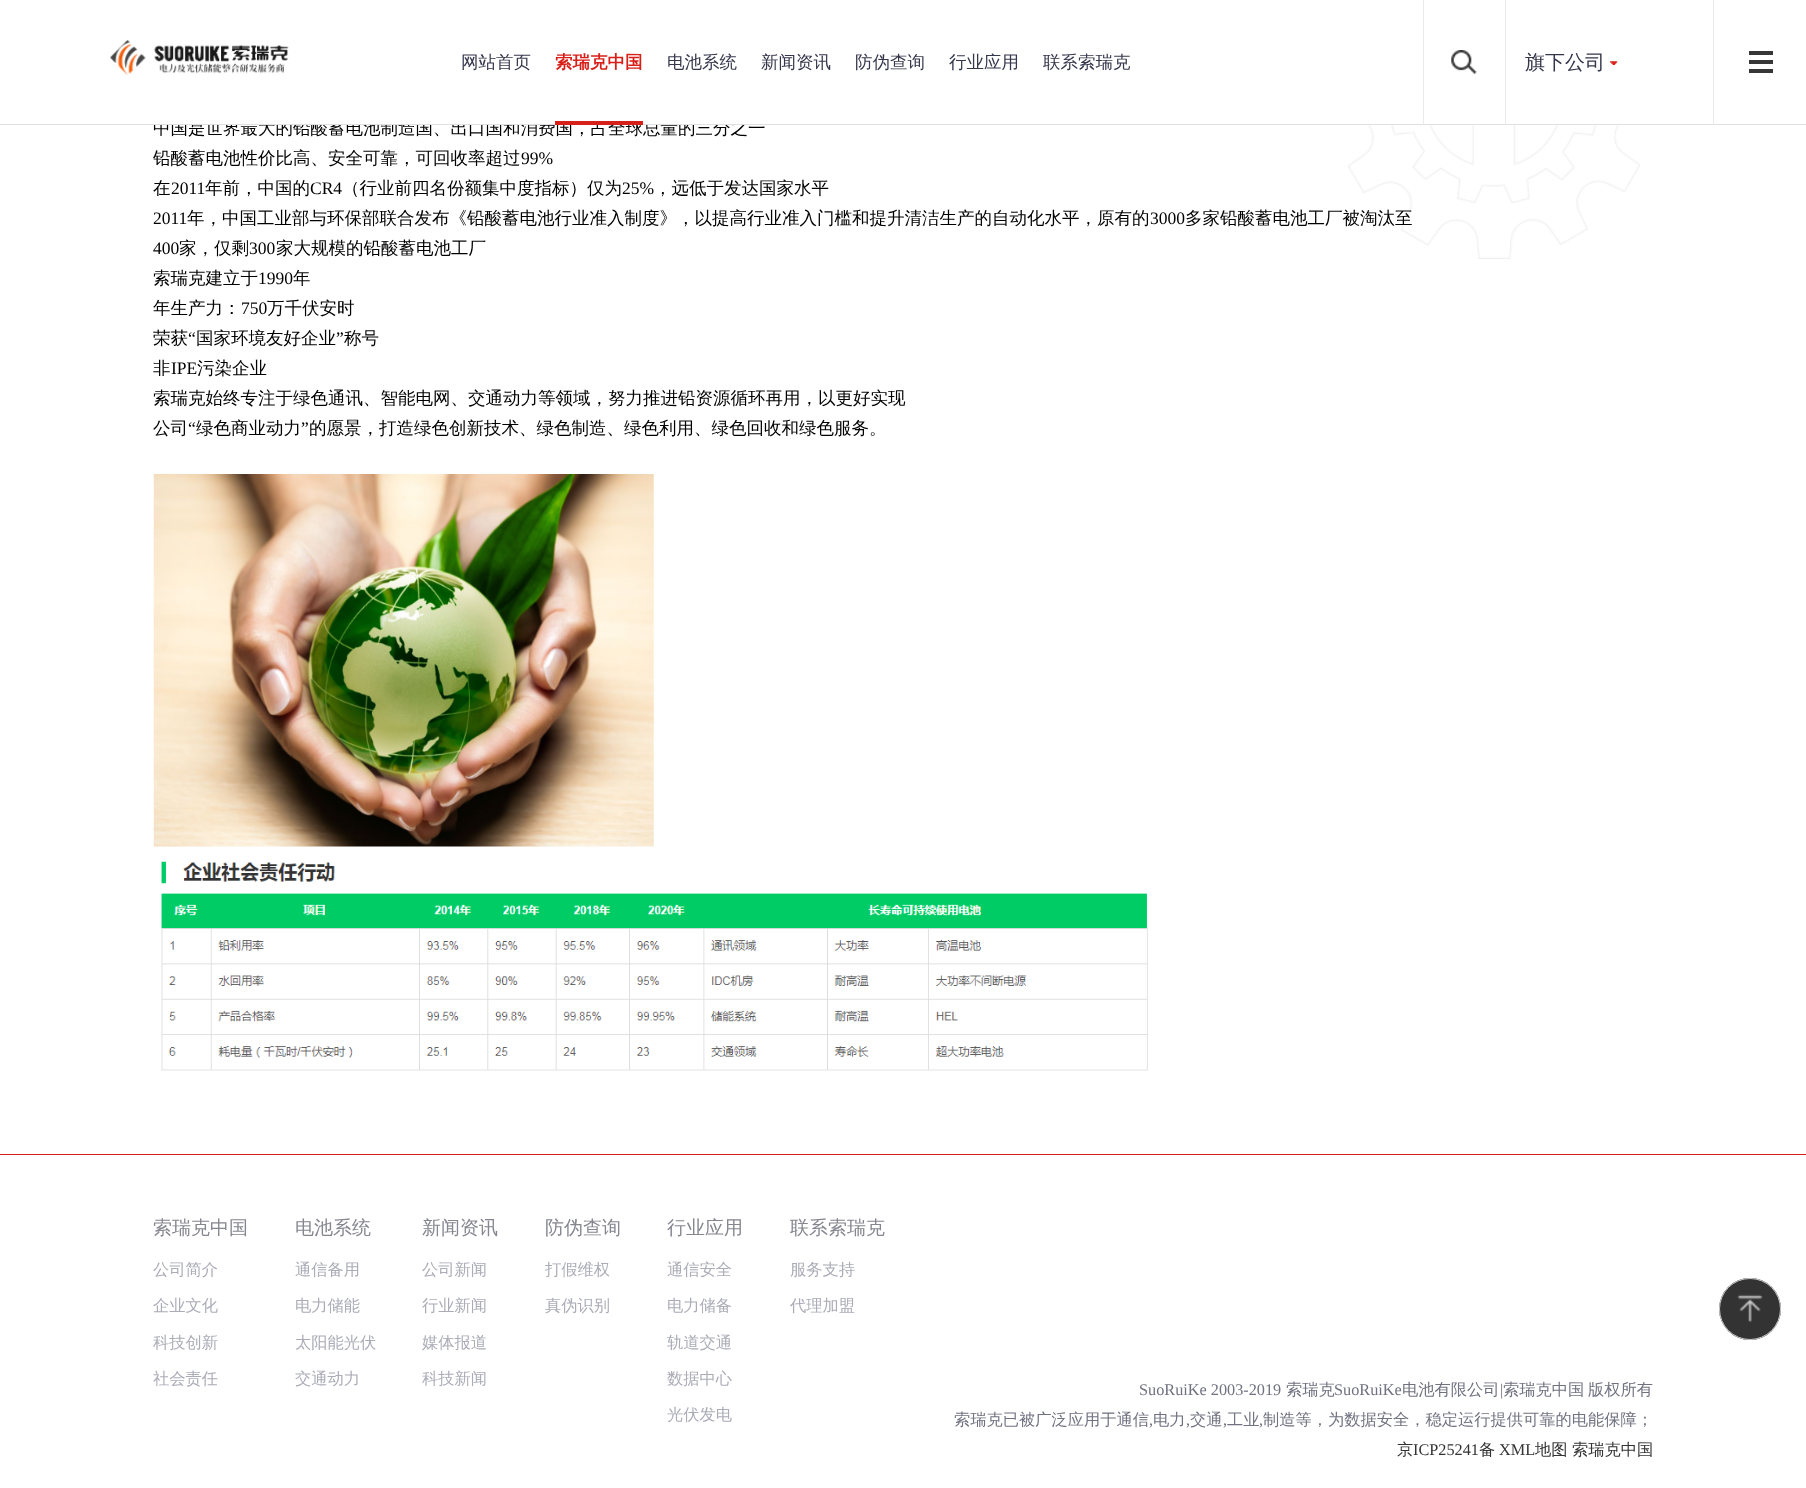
<svg xmlns="http://www.w3.org/2000/svg" width="1806" height="1488" viewBox="0 0 1806 1488">
  <style>
    .t1 { font: 500 17.5px WenQuanYi Zen Hei; fill: #000; }
    .t2 { font: 500 17.5px WenQuanYi Zen Hei; fill: #34364b; }
    .t3 { font: bold 17.5px WenQuanYi Zen Hei; fill: #d82019; }
    .t4 { font: 500 20px WenQuanYi Zen Hei; fill: #34364b; }
    .t5 { font: 17.5px Liberation Serif; fill: #000; }
    .t6 { font: 500 19px WenQuanYi Zen Hei; fill: #85868f; }
    .t7 { font: 500 16.25px WenQuanYi Zen Hei; fill: #abacb7; }
    .t8 { font: 16.25px Liberation Serif; fill: #717281; }
    .t9 { font: 500 16.25px WenQuanYi Zen Hei; fill: #717281; }
    .t10 { font: 500 16.25px WenQuanYi Zen Hei; fill: #333; }
    .t11 { font: 16.25px Liberation Serif; fill: #333; }
  </style>
  <rect width="100%" height="100%" fill="#fff"/>
  <text x="153" y="134" class="t1">中国是世界最大的铅酸蓄电池制造国、出口国和消费国，占全球总量的三分之一</text>
  <rect x="154" y="119" width="587" height="5" fill="#fff"/>
  <rect x="0" y="124" width="1806" height="1" fill="#e0e0e0"/>
  <image x="110" y="40" width="179" height="35" href="images/1.png"/>
  <text x="461" y="68" class="t2">网站首页</text>
  <text x="555" y="68" class="t3">索瑞克中国</text>
  <rect x="555" y="121" width="88" height="4" fill="#d82019"/>
  <text x="667" y="68" class="t2">电池系统</text>
  <text x="761" y="68" class="t2">新闻资讯</text>
  <text x="855" y="68" class="t2">防伪查询</text>
  <text x="949" y="68" class="t2">行业应用</text>
  <text x="1043" y="68" class="t2">联系索瑞克</text>
  <rect x="1423" y="0" width="1" height="125" fill="#eaeaea"/>
  <image x="1451" y="50" width="26" height="24" href="images/2.png"/>
  <rect x="1505" y="0" width="1" height="125" fill="#eaeaea"/>
  <image x="1610" y="61" width="8" height="4" href="images/3.png"/>
  <text x="1525" y="69" class="t4">旗下公司</text>
  <rect x="1713" y="0" width="1" height="125" fill="#eaeaea"/>
  <rect x="1749" y="51" width="24" height="4" fill="#373737"/>
  <rect x="1749" y="60" width="24" height="4" fill="#373737"/>
  <rect x="1749" y="69" width="24" height="4" fill="#373737"/>
  <image x="1348" y="125" width="292" height="134" href="images/4.png"/>
  <text x="153" y="164" class="t1">铅酸蓄电池性价比高、安全可靠，可回收率超过</text>
  <text x="521" y="164" class="t5">99%</text>
  <text x="153" y="194" class="t1">在</text>
  <text x="171" y="194" class="t5">2011</text>
  <text x="205" y="194" class="t1">年前，中国的</text>
  <text x="310" y="194" class="t5">CR4</text>
  <text x="342" y="194" class="t1">（行业前四名份额集中度指标）仅为</text>
  <text x="622" y="194" class="t5">25%</text>
  <text x="654" y="194" class="t1">，远低于发达国家水平</text>
  <text x="153" y="224" class="t5">2011</text>
  <text x="187" y="224" class="t1">年，中国工业部与环保部联合发布《铅酸蓄电池行业准入制度》，以提高行业准入门槛和提升清洁生产的自动化水平，原有的</text>
  <text x="1150" y="224" class="t5">3000</text>
  <text x="1185" y="224" class="t1">多家铅酸蓄电池工厂被淘汰至</text>
  <text x="153" y="254" class="t5">400</text>
  <text x="179" y="254" class="t1">家，仅剩</text>
  <text x="249" y="254" class="t5">300</text>
  <text x="276" y="254" class="t1">家大规模的铅酸蓄电池工厂</text>
  <text x="153" y="284" class="t1">索瑞克建立于</text>
  <text x="258" y="284" class="t5">1990</text>
  <text x="293" y="284" class="t1">年</text>
  <text x="153" y="314" class="t1">年生产力：</text>
  <text x="241" y="314" class="t5">750</text>
  <text x="267" y="314" class="t1">万千伏安时</text>
  <text x="153" y="344" class="t1">荣获</text>
  <text x="188" y="344" class="t5">“</text>
  <text x="196" y="344" class="t1">国家环境友好企业</text>
  <text x="336" y="344" class="t5">”</text>
  <text x="344" y="344" class="t1">称号</text>
  <text x="153" y="374" class="t1">非</text>
  <text x="171" y="374" class="t5">IPE</text>
  <text x="197" y="374" class="t1">污染企业</text>
  <text x="153" y="404" class="t1">索瑞克始终专注于绿色通讯、智能电网、交通动力等领域，努力推进铅资源循环再用，以更好实现</text>
  <text x="153" y="434" class="t1">公司</text>
  <text x="188" y="434" class="t5">“</text>
  <text x="196" y="434" class="t1">绿色商业动力</text>
  <text x="301" y="434" class="t5">”</text>
  <text x="309" y="434" class="t1">的愿景，打造绿色创新技术、绿色制造、绿色利用、绿色回收和绿色服务。</text>
  <image x="153" y="474" width="501" height="373" href="images/5.png"/>
  <image x="161" y="861" width="987" height="210" href="images/6.png"/>
  <rect x="0" y="1154" width="1806" height="1" fill="#d82019"/>
  <text x="153" y="1234" class="t6">索瑞克中国</text>
  <text x="153" y="1275" class="t7">公司简介</text>
  <text x="153" y="1311" class="t7">企业文化</text>
  <text x="153" y="1348" class="t7">科技创新</text>
  <text x="153" y="1384" class="t7">社会责任</text>
  <text x="295" y="1234" class="t6">电池系统</text>
  <text x="295" y="1275" class="t7">通信备用</text>
  <text x="295" y="1311" class="t7">电力储能</text>
  <text x="295" y="1348" class="t7">太阳能光伏</text>
  <text x="295" y="1384" class="t7">交通动力</text>
  <text x="422" y="1234" class="t6">新闻资讯</text>
  <text x="422" y="1275" class="t7">公司新闻</text>
  <text x="422" y="1311" class="t7">行业新闻</text>
  <text x="422" y="1348" class="t7">媒体报道</text>
  <text x="422" y="1384" class="t7">科技新闻</text>
  <text x="545" y="1234" class="t6">防伪查询</text>
  <text x="545" y="1275" class="t7">打假维权</text>
  <text x="545" y="1311" class="t7">真伪识别</text>
  <text x="667" y="1234" class="t6">行业应用</text>
  <text x="667" y="1275" class="t7">通信安全</text>
  <text x="667" y="1311" class="t7">电力储备</text>
  <text x="667" y="1348" class="t7">轨道交通</text>
  <text x="667" y="1384" class="t7">数据中心</text>
  <text x="667" y="1420" class="t7">光伏发电</text>
  <text x="790" y="1234" class="t6">联系索瑞克</text>
  <text x="790" y="1275" class="t7">服务支持</text>
  <text x="790" y="1311" class="t7">代理加盟</text>
  <text x="1139" y="1395" class="t8">SuoRuiKe 2003-2019</text>
  <text x="1286" y="1395" class="t9">索瑞克</text>
  <text x="1334" y="1395" class="t8">SuoRuiKe</text>
  <text x="1402" y="1395" class="t9">电池有限公司</text>
  <text x="1500" y="1395" class="t8">|</text>
  <text x="1503" y="1395" class="t9">索瑞克中国</text>
  <text x="1588" y="1395" class="t9">版权所有</text>
  <text x="954" y="1425" class="t9">索瑞克已被广泛应用于通信</text>
  <text x="1149" y="1425" class="t8">,</text>
  <text x="1153" y="1425" class="t9">电力</text>
  <text x="1186" y="1425" class="t8">,</text>
  <text x="1190" y="1425" class="t9">交通</text>
  <text x="1223" y="1425" class="t8">,</text>
  <text x="1227" y="1425" class="t9">工业</text>
  <text x="1259" y="1425" class="t8">,</text>
  <text x="1263" y="1425" class="t9">制造等，为数据安全，稳定运行提供可靠的电能保障；</text>
  <text x="1397" y="1455" class="t10">京</text>
  <text x="1413" y="1455" class="t11">ICP25241</text>
  <text x="1479" y="1455" class="t10">备</text>
  <text x="1499" y="1455" class="t11">XML</text>
  <text x="1535" y="1455" class="t10">地图</text>
  <text x="1572" y="1455" class="t10">索瑞克中国</text>
  <circle cx="1750" cy="1309" r="31" fill="#333"/>
  <image x="1737" y="1294" width="26" height="29" href="images/7.png"/>
  <circle cx="1750" cy="1309" r="30.5" fill="none" stroke="#ccc"/>
</svg>
